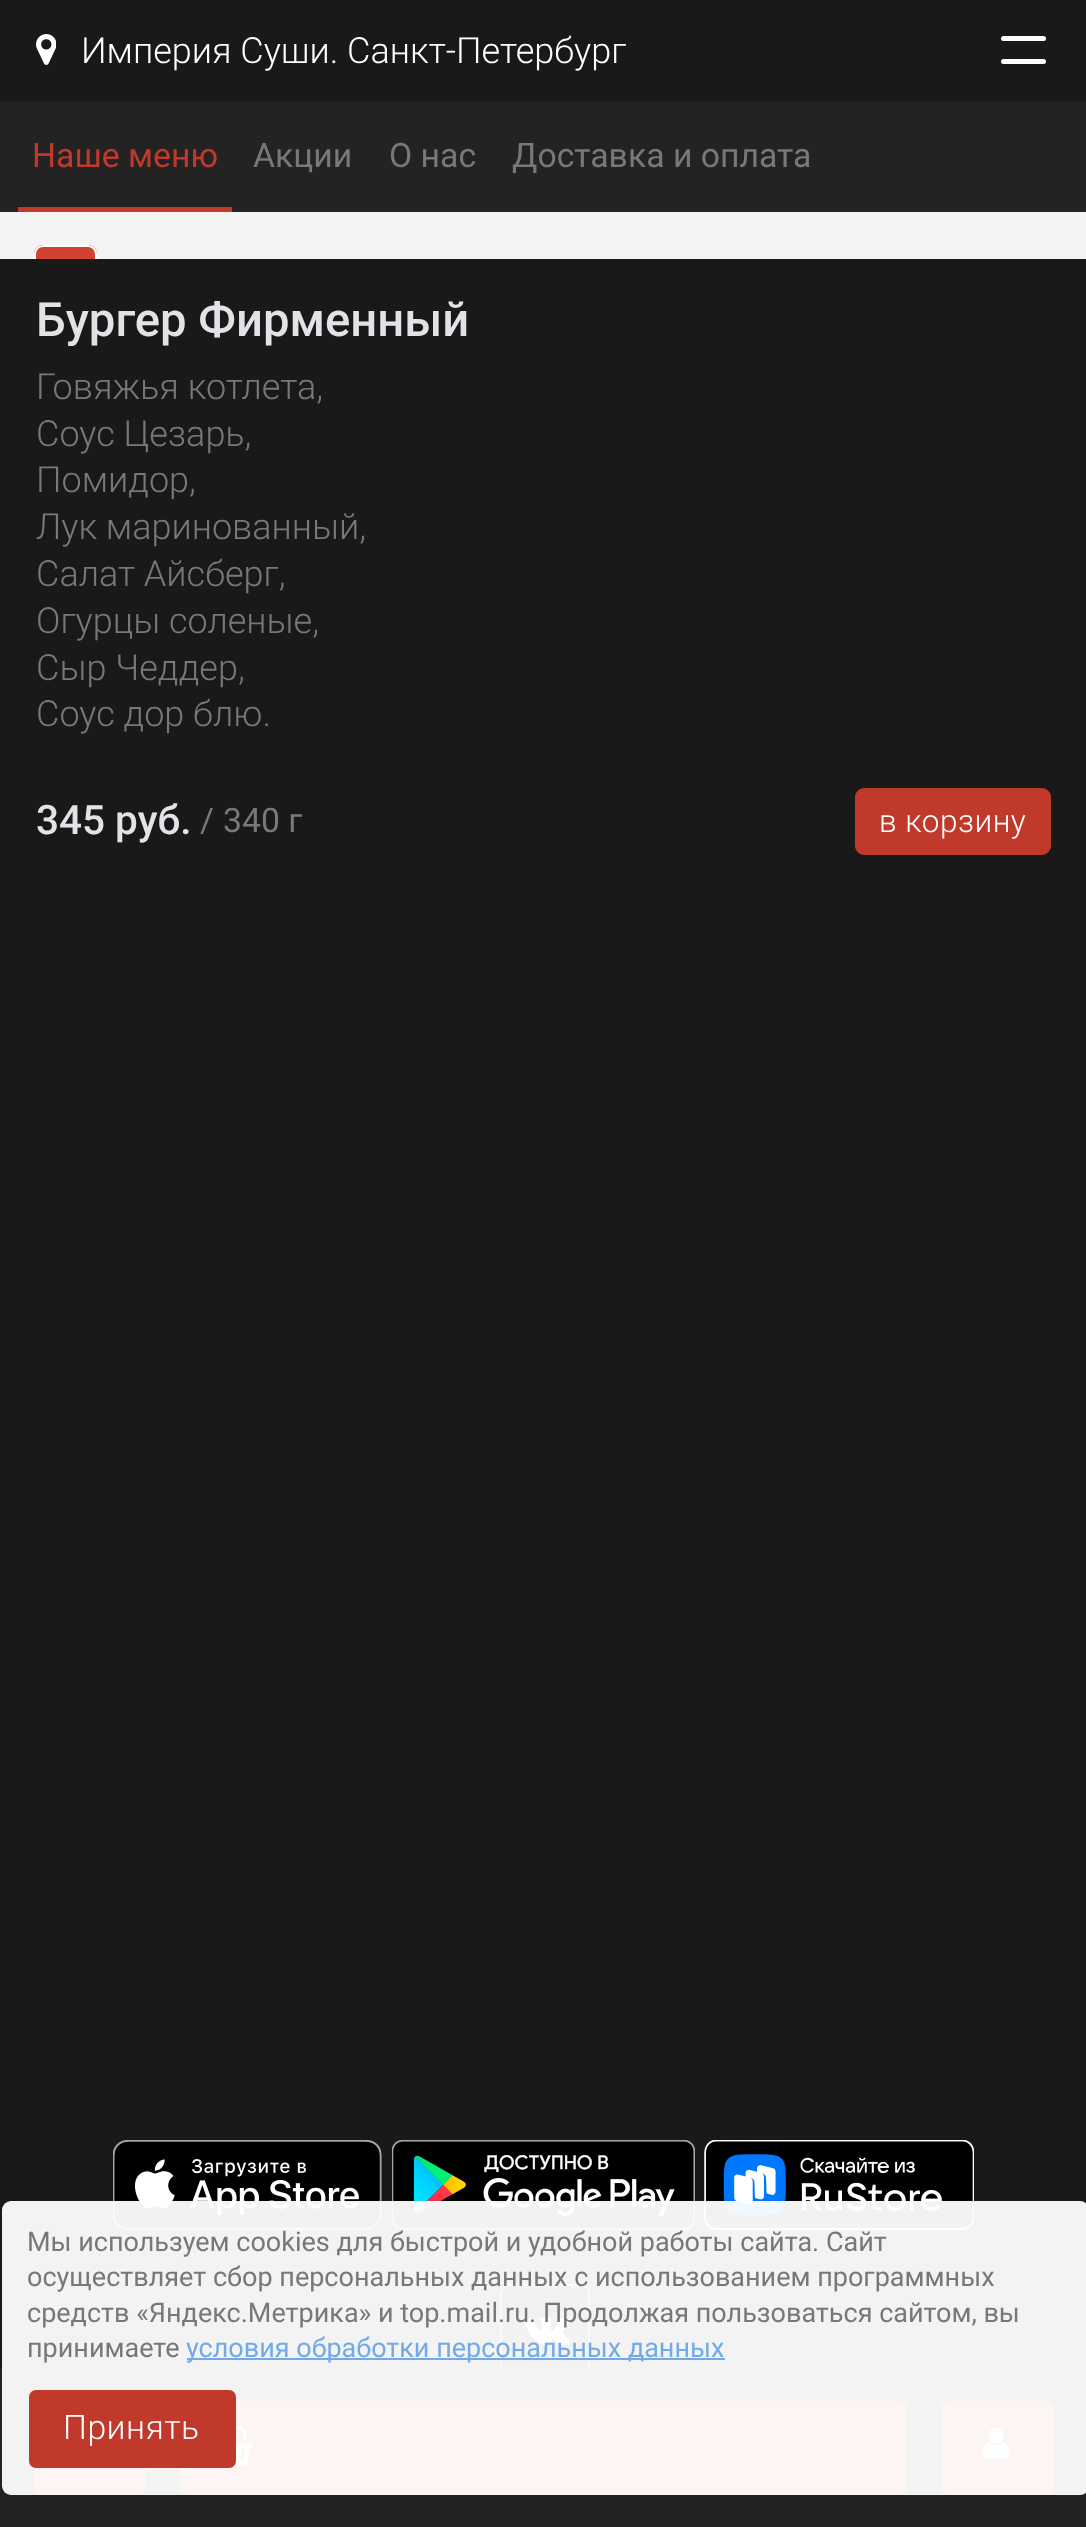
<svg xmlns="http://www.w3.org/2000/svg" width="1086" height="2527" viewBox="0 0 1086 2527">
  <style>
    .t1 { font: 300 36px Roboto; fill: #fff; }
    .t2 { font: 33.75px Roboto; fill: #c0392b; }
    .t3 { font: 33.75px Roboto; fill: #76787a; }
    .t4 { font: 500 47.25px Roboto; fill: #e1e3e6; }
    .t5 { font: 300 36px Roboto; fill: #76787a; }
    .t6 { font: 500 40.5px Roboto; fill: #e1e3e6; }
    .t7 { font: 300 31.5px Roboto; letter-spacing: 0.5px; fill: #fff; }
    .t8 { font: 27px Roboto; fill: #76787a; }
    .t9 { font: 27px Roboto; fill: #71aaeb; }
    .t10 { font: 300 33.75px Roboto; letter-spacing: 0.5px; fill: #fff; }
  </style>
  <defs>
    <clipPath id="clip1"><rect x="0" y="212" width="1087" height="47"/></clipPath>
  </defs>
  <rect width="100%" height="100%" fill="#19191a"/>
  <path d="M0 101V104H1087V2V101Z" fill="#202020"/>
  <image x="36" y="34" width="20" height="31" href="images/1.png"/>
  <text x="81" y="63" class="t1">Империя Суши. Санкт-Петербург</text>
  <rect x="1001" y="36" width="45" height="5" rx="2.5" fill="#fff"/>
  <rect x="1001" y="59" width="45" height="5" rx="2.5" fill="#fff"/>
  <rect x="0" y="104" width="1086" height="108" fill="#232324"/>
  <rect x="18" y="207" width="214" height="5" fill="#c0392b"/>
  <text x="32" y="167" class="t2">Наше меню</text>
  <text x="253" y="167" class="t3">Акции</text>
  <text x="389" y="167" class="t3">О нас</text>
  <text x="512" y="167" class="t3">Доставка и оплата</text>
  <rect x="0" y="212" width="1086" height="47" fill="#f3f3f3"/>
  <path d="M43 245H88C93 245 97 249 97 254V259H34V254C34 249 38 245 43 245Z" fill="#d14233"/>
  <text x="36" y="336" class="t4">Бургер Фирменный</text>
  <g clip-path="url(#clip1)">
    <rect x="35" y="246" width="61" height="61" rx="8" fill="none" stroke="#fff" stroke-width="2"/>
  </g>
  <text x="36" y="399" class="t5">Говяжья котлета,</text>
  <text x="36" y="446" class="t5">Соус Цезарь,</text>
  <text x="36" y="492" class="t5">Помидор,</text>
  <text x="36" y="539" class="t5">Лук маринованный,</text>
  <text x="36" y="586" class="t5">Салат Айсберг,</text>
  <text x="36" y="633" class="t5">Огурцы соленые,</text>
  <text x="36" y="680" class="t5">Сыр Чеддер,</text>
  <text x="36" y="726" class="t5">Соус дор блю.</text>
  <text x="36" y="834" class="t6">345 руб.</text>
  <text x="200" y="832" class="t3">/</text>
  <text x="223" y="832" class="t3">340 г</text>
  <rect x="856" y="789" width="194" height="65" rx="8" fill="#c0392b" stroke="#c0392b" stroke-width="2"/>
  <text x="879" y="832" class="t7">в корзину</text>
  <image x="113" y="2140" width="269" height="90" href="images/2.png"/>
  <image x="392" y="2140" width="303" height="90" href="images/3.png"/>
  <image x="704" y="2140" width="270" height="90" href="images/4.png"/>
  <rect x="501" y="2285" width="88" height="88" rx="8" fill="#000" stroke="#a6a6a6" stroke-width="2"/>
  <image x="522" y="2317" width="49" height="28" href="images/5.png"/>
  <rect x="0" y="2365" width="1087" height="162" fill="#0000001a" filter="blur(2px)"/>
  <rect x="0" y="2367" width="1086" height="160" fill="#232324"/>
  <rect x="34" y="2401" width="112" height="94" rx="7" fill="#c0392b"/>
  <rect x="180" y="2401" width="727" height="94" rx="7" fill="#c0392b"/>
  <image x="234" y="2426" width="20" height="40" href="images/6.png"/>
  <rect x="941" y="2401" width="112" height="94" rx="7" fill="#c0392b"/>
  <image x="983" y="2428" width="26" height="31" href="images/7.png"/>
  <rect x="2" y="2201" width="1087" height="294" rx="9" fill="#fffffff2"/>
  <text x="27" y="2251" class="t8">Мы используем cookies для быстрой и удобной работы сайта. Сайт</text>
  <text x="27" y="2286" class="t8">осуществляет сбор персональных данных с использованием программных</text>
  <text x="27" y="2322" class="t8">средств «Яндекс.Метрика» и top.mail.ru. Продолжая пользоваться сайтом, вы</text>
  <text x="27" y="2357" class="t8">принимаете</text>
  <rect x="187" y="2358" width="538" height="2" fill="#71aaeb"/>
  <text x="186" y="2357" class="t9">условия обработки персональных данных</text>
  <rect x="30" y="2391" width="205" height="76" rx="6" fill="#c0392b" stroke="#c0392b" stroke-width="2"/>
  <text x="63" y="2439" class="t10">Принять</text>
</svg>
